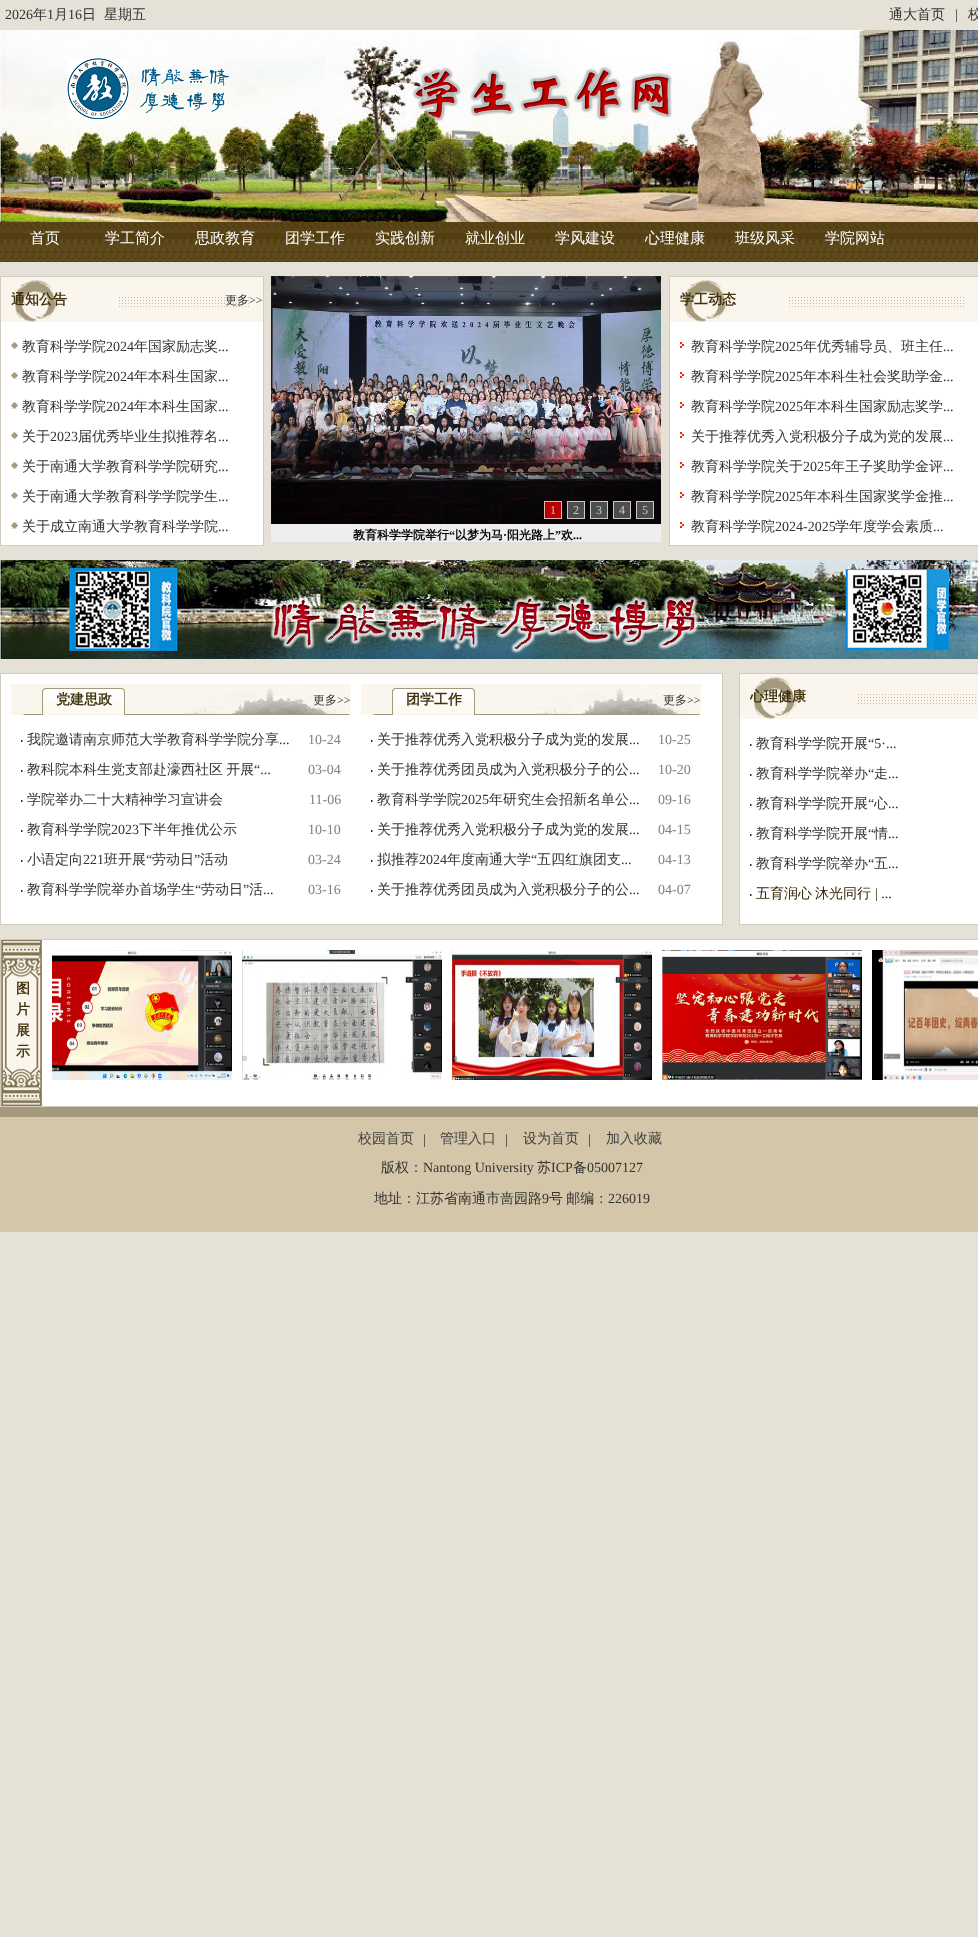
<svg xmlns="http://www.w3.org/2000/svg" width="978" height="1937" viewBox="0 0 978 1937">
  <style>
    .t1 { font: 14px Liberation Serif; fill: #333; }
    .t2 { font: 500 14px WenQuanYi Zen Hei; fill: #333; }
    .t3 { font: 500 15px WenQuanYi Zen Hei; fill: #fff; }
    .t4 { font: bold 14px WenQuanYi Zen Hei; fill: #42330e; }
    .t5 { font: 500 12px WenQuanYi Zen Hei; fill: #333; }
    .t6 { font: 12px Liberation Serif; fill: #333; }
    .t7 { font: 12px Liberation Serif; fill: #e9b3b3; }
    .t8 { font: 12px Liberation Serif; fill: #cacaca; }
    .t9 { font: bold 12px WenQuanYi Zen Hei; fill: #000; }
    .t10 { font: bold 12px Liberation Serif; fill: #000; }
    .t11 { font: 14px Liberation Serif; fill: #808080; }
    .t12 { font: 500 14px WenQuanYi Zen Hei; fill: #320; }
    .t13 { font: 14px Liberation Serif; fill: #320; }
    .t14 { font: 500 14px WenQuanYi Zen Hei; fill: #404040; }
  </style>
  <rect width="100%" height="100%" fill="#e6e1d7"/>
  <text x="5" y="19" class="t1">2026</text>
  <text x="33" y="19" class="t2">年</text>
  <text x="47" y="19" class="t1">1</text>
  <text x="54" y="19" class="t2">月</text>
  <text x="68" y="19" class="t1">16</text>
  <text x="82" y="19" class="t2">日</text>
  <text x="104" y="19" class="t2">星期五</text>
  <text x="889" y="19" class="t2">通大首页</text>
  <text x="955" y="19" class="t1">|</text>
  <text x="968" y="19" class="t2">校</text>
  <image x="0" y="30" width="978" height="192" href="images/1.png"/>
  <image x="0" y="222" width="978" height="40" href="images/2.png"/>
  <text x="30" y="243" class="t3">首页</text>
  <text x="105" y="243" class="t3">学工简介</text>
  <text x="195" y="243" class="t3">思政教育</text>
  <text x="285" y="243" class="t3">团学工作</text>
  <text x="375" y="243" class="t3">实践创新</text>
  <text x="465" y="243" class="t3">就业创业</text>
  <text x="555" y="243" class="t3">学风建设</text>
  <text x="645" y="243" class="t3">心理健康</text>
  <text x="735" y="243" class="t3">班级风采</text>
  <text x="825" y="243" class="t3">学院网站</text>
  <rect x="1" y="322" width="262" height="223" fill="#fff"/>
  <rect x="0.5" y="276.5" width="263" height="269" fill="none" stroke="#d1ccbf"/>
  <image x="1" y="277" width="262" height="45" href="images/3.png"/>
  <text x="11" y="304" class="t4">通知公告</text>
  <text x="225" y="304" class="t5">更多</text>
  <text x="249" y="304" class="t6">&gt;&gt;</text>
  <image x="11" y="342" width="7" height="7" href="images/4.png"/>
  <text x="22" y="351" class="t2">教育科学学院</text>
  <text x="106" y="351" class="t1">2024</text>
  <text x="134" y="351" class="t2">年国家励志奖</text>
  <text x="218" y="351" class="t1">...</text>
  <image x="11" y="372" width="7" height="7" href="images/4.png"/>
  <text x="22" y="381" class="t2">教育科学学院</text>
  <text x="106" y="381" class="t1">2024</text>
  <text x="134" y="381" class="t2">年本科生国家</text>
  <text x="218" y="381" class="t1">...</text>
  <image x="11" y="402" width="7" height="7" href="images/4.png"/>
  <text x="22" y="411" class="t2">教育科学学院</text>
  <text x="106" y="411" class="t1">2024</text>
  <text x="134" y="411" class="t2">年本科生国家</text>
  <text x="218" y="411" class="t1">...</text>
  <image x="11" y="432" width="7" height="7" href="images/4.png"/>
  <text x="22" y="441" class="t2">关于</text>
  <text x="50" y="441" class="t1">2023</text>
  <text x="78" y="441" class="t2">届优秀毕业生拟推荐名</text>
  <text x="218" y="441" class="t1">...</text>
  <image x="11" y="462" width="7" height="7" href="images/4.png"/>
  <text x="22" y="471" class="t2">关于南通大学教育科学学院研究</text>
  <text x="218" y="471" class="t1">...</text>
  <image x="11" y="492" width="7" height="7" href="images/4.png"/>
  <text x="22" y="501" class="t2">关于南通大学教育科学学院学生</text>
  <text x="218" y="501" class="t1">...</text>
  <image x="11" y="522" width="7" height="7" href="images/4.png"/>
  <text x="22" y="531" class="t2">关于成立南通大学教育科学学院</text>
  <text x="218" y="531" class="t1">...</text>
  <image x="271" y="276" width="390" height="248" href="images/5.png"/>
  <rect x="544" y="501" width="18" height="18" fill="#ff0000b3"/>
  <rect x="544.5" y="501.5" width="17" height="17" fill="none" stroke="#ffffffb3"/>
  <text x="550" y="514" class="t7">1</text>
  <rect x="567" y="501" width="18" height="18" fill="#6c6d6eb3"/>
  <rect x="567.5" y="501.5" width="17" height="17" fill="none" stroke="#ffffffb3"/>
  <text x="573" y="514" class="t8">2</text>
  <rect x="590" y="501" width="18" height="18" fill="#6c6d6eb3"/>
  <rect x="590.5" y="501.5" width="17" height="17" fill="none" stroke="#ffffffb3"/>
  <text x="596" y="514" class="t8">3</text>
  <rect x="613.5" y="501.5" width="17" height="17" fill="#6c6d6eb3" stroke="#cacaca"/>
  <text x="619" y="514" class="t8">4</text>
  <rect x="636" y="501" width="18" height="18" fill="#6c6d6eb3"/>
  <rect x="636.5" y="501.5" width="17" height="17" fill="none" stroke="#ffffffb3"/>
  <text x="642" y="514" class="t8">5</text>
  <rect x="271" y="524" width="390" height="18" fill="#eee"/>
  <text x="353" y="539" class="t9">教育科学学院举行</text>
  <text x="449" y="539" class="t10">“</text>
  <text x="455" y="539" class="t9">以梦为马</text>
  <text x="503" y="539" class="t10">·</text>
  <text x="507" y="539" class="t9">阳光路上</text>
  <text x="555" y="539" class="t10">”</text>
  <text x="561" y="539" class="t9">欢</text>
  <text x="573" y="539" class="t10">...</text>
  <rect x="670" y="322" width="308" height="223" fill="#fff"/>
  <rect x="669.5" y="276.5" width="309" height="269" fill="none" stroke="#d1ccbf"/>
  <image x="670" y="277" width="308" height="45" href="images/6.png"/>
  <text x="680" y="304" class="t4">学工动态</text>
  <image x="680" y="342" width="4" height="6" href="images/7.png"/>
  <text x="691" y="351" class="t2">教育科学学院</text>
  <text x="775" y="351" class="t1">2025</text>
  <text x="803" y="351" class="t2">年优秀辅导员、班主任</text>
  <text x="943" y="351" class="t1">...</text>
  <image x="680" y="372" width="4" height="6" href="images/7.png"/>
  <text x="691" y="381" class="t2">教育科学学院</text>
  <text x="775" y="381" class="t1">2025</text>
  <text x="803" y="381" class="t2">年本科生社会奖助学金</text>
  <text x="943" y="381" class="t1">...</text>
  <image x="680" y="402" width="4" height="6" href="images/7.png"/>
  <text x="691" y="411" class="t2">教育科学学院</text>
  <text x="775" y="411" class="t1">2025</text>
  <text x="803" y="411" class="t2">年本科生国家励志奖学</text>
  <text x="943" y="411" class="t1">...</text>
  <image x="680" y="432" width="4" height="6" href="images/7.png"/>
  <text x="691" y="441" class="t2">关于推荐优秀入党积极分子成为党的发展</text>
  <text x="943" y="441" class="t1">...</text>
  <image x="680" y="462" width="4" height="6" href="images/7.png"/>
  <text x="691" y="471" class="t2">教育科学学院关于</text>
  <text x="803" y="471" class="t1">2025</text>
  <text x="831" y="471" class="t2">年王子奖助学金评</text>
  <text x="943" y="471" class="t1">...</text>
  <image x="680" y="492" width="4" height="6" href="images/7.png"/>
  <text x="691" y="501" class="t2">教育科学学院</text>
  <text x="775" y="501" class="t1">2025</text>
  <text x="803" y="501" class="t2">年本科生国家奖学金推</text>
  <text x="943" y="501" class="t1">...</text>
  <image x="680" y="522" width="4" height="6" href="images/7.png"/>
  <text x="691" y="531" class="t2">教育科学学院</text>
  <text x="775" y="531" class="t1">2024-2025</text>
  <text x="835" y="531" class="t2">学年度学会素质</text>
  <text x="933" y="531" class="t1">...</text>
  <image x="0" y="560" width="978" height="99" href="images/8.png"/>
  <rect x="0.5" y="673.5" width="722" height="251" fill="#fff" stroke="#d1ccbf"/>
  <image x="11" y="684" width="340" height="31" href="images/9.png"/>
  <text x="56" y="704" class="t4">党建思政</text>
  <text x="313" y="704" class="t5">更多</text>
  <text x="337" y="704" class="t6">&gt;&gt;</text>
  <image x="21" y="740" width="2" height="2" href="images/10.png"/>
  <text x="27" y="744" class="t2">我院邀请南京师范大学教育科学学院分享</text>
  <text x="308" y="744" class="t11">10-24</text>
  <text x="279" y="744" class="t1">...</text>
  <image x="21" y="770" width="2" height="2" href="images/10.png"/>
  <text x="27" y="774" word-spacing="-1" class="t2">教科院本科生党支部赴濠西社区 开展</text>
  <text x="254" y="774" class="t1">“...</text>
  <text x="308" y="774" class="t11">03-04</text>
  <image x="21" y="800" width="2" height="2" href="images/10.png"/>
  <text x="27" y="804" class="t2">学院举办二十大精神学习宣讲会</text>
  <text x="309" y="804" class="t11">11-06</text>
  <image x="21" y="830" width="2" height="2" href="images/10.png"/>
  <text x="27" y="834" class="t2">教育科学学院</text>
  <text x="111" y="834" class="t1">2023</text>
  <text x="139" y="834" class="t2">下半年推优公示</text>
  <text x="308" y="834" class="t11">10-10</text>
  <image x="21" y="860" width="2" height="2" href="images/10.png"/>
  <text x="27" y="864" class="t2">小语定向</text>
  <text x="83" y="864" class="t1">221</text>
  <text x="104" y="864" class="t2">班开展</text>
  <text x="146" y="864" class="t1">“</text>
  <text x="152" y="864" class="t2">劳动日</text>
  <text x="194" y="864" class="t1">”</text>
  <text x="200" y="864" class="t2">活动</text>
  <text x="308" y="864" class="t11">03-24</text>
  <image x="21" y="890" width="2" height="2" href="images/10.png"/>
  <text x="27" y="894" class="t2">教育科学学院举办首场学生</text>
  <text x="195" y="894" class="t1">“</text>
  <text x="201" y="894" class="t2">劳动日</text>
  <text x="243" y="894" class="t1">”</text>
  <text x="249" y="894" class="t2">活</text>
  <text x="308" y="894" class="t11">03-16</text>
  <text x="263" y="894" class="t1">...</text>
  <image x="361" y="684" width="340" height="31" href="images/9.png"/>
  <text x="406" y="704" class="t4">团学工作</text>
  <text x="663" y="704" class="t5">更多</text>
  <text x="687" y="704" class="t6">&gt;&gt;</text>
  <image x="371" y="740" width="2" height="2" href="images/10.png"/>
  <text x="377" y="744" class="t2">关于推荐优秀入党积极分子成为党的发展</text>
  <text x="658" y="744" class="t11">10-25</text>
  <text x="629" y="744" class="t1">...</text>
  <image x="371" y="770" width="2" height="2" href="images/10.png"/>
  <text x="377" y="774" class="t2">关于推荐优秀团员成为入党积极分子的公</text>
  <text x="658" y="774" class="t11">10-20</text>
  <text x="629" y="774" class="t1">...</text>
  <image x="371" y="800" width="2" height="2" href="images/10.png"/>
  <text x="377" y="804" class="t2">教育科学学院</text>
  <text x="461" y="804" class="t1">2025</text>
  <text x="489" y="804" class="t2">年研究生会招新名单公</text>
  <text x="658" y="804" class="t11">09-16</text>
  <text x="629" y="804" class="t1">...</text>
  <image x="371" y="830" width="2" height="2" href="images/10.png"/>
  <text x="377" y="834" class="t2">关于推荐优秀入党积极分子成为党的发展</text>
  <text x="658" y="834" class="t11">04-15</text>
  <text x="629" y="834" class="t1">...</text>
  <image x="371" y="860" width="2" height="2" href="images/10.png"/>
  <text x="377" y="864" class="t2">拟推荐</text>
  <text x="419" y="864" class="t1">2024</text>
  <text x="447" y="864" class="t2">年度南通大学</text>
  <text x="531" y="864" class="t1">“</text>
  <text x="537" y="864" class="t2">五四红旗团支</text>
  <text x="658" y="864" class="t11">04-13</text>
  <text x="621" y="864" class="t1">...</text>
  <image x="371" y="890" width="2" height="2" href="images/10.png"/>
  <text x="377" y="894" class="t2">关于推荐优秀团员成为入党积极分子的公</text>
  <text x="658" y="894" class="t11">04-07</text>
  <text x="629" y="894" class="t1">...</text>
  <rect x="42" y="940" width="936" height="166" fill="#fff"/>
  <rect x="0.5" y="939.5" width="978" height="167" fill="none" stroke="#d1ccbf"/>
  <image x="1" y="940" width="41" height="166" href="images/11.png"/>
  <text x="16" y="993" class="t4">图</text>
  <text x="16" y="1014" class="t4">片</text>
  <text x="16" y="1035" class="t4">展</text>
  <text x="16" y="1056" class="t4">示</text>
  <image x="52" y="950" width="180" height="130" href="images/12.png"/>
  <image x="242" y="950" width="200" height="130" href="images/13.png"/>
  <image x="452" y="950" width="200" height="130" href="images/14.png"/>
  <image x="662" y="950" width="200" height="130" href="images/15.png"/>
  <image x="872" y="950" width="106" height="130" href="images/16.png"/>
  <rect x="740" y="719" width="238" height="205" fill="#fff"/>
  <rect x="739.5" y="673.5" width="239" height="251" fill="none" stroke="#d1ccbf"/>
  <image x="740" y="674" width="238" height="45" href="images/17.png"/>
  <text x="750" y="701" class="t4">心理健康</text>
  <image x="750" y="744" width="2" height="2" href="images/10.png"/>
  <text x="756" y="748" class="t2">教育科学学院开展</text>
  <text x="868" y="748" class="t1">“5·...</text>
  <text x="756" y="778" class="t2">教育科学学院举办</text>
  <text x="868" y="778" class="t1">“</text>
  <text x="874" y="778" class="t2">走</text>
  <image x="750" y="774" width="2" height="2" href="images/10.png"/>
  <text x="888" y="778" class="t1">...</text>
  <text x="756" y="808" class="t2">教育科学学院开展</text>
  <text x="868" y="808" class="t1">“</text>
  <text x="874" y="808" class="t2">心</text>
  <image x="750" y="804" width="2" height="2" href="images/10.png"/>
  <text x="888" y="808" class="t1">...</text>
  <text x="756" y="838" class="t2">教育科学学院开展</text>
  <text x="868" y="838" class="t1">“</text>
  <text x="874" y="838" class="t2">情</text>
  <image x="750" y="834" width="2" height="2" href="images/10.png"/>
  <text x="888" y="838" class="t1">...</text>
  <text x="756" y="868" class="t2">教育科学学院举办</text>
  <text x="868" y="868" class="t1">“</text>
  <text x="874" y="868" class="t2">五</text>
  <image x="750" y="864" width="2" height="2" href="images/10.png"/>
  <text x="888" y="868" class="t1">...</text>
  <image x="750" y="894" width="2" height="2" href="images/10.png"/>
  <text x="756" y="898" class="t12">五育润心</text>
  <text x="815" y="898" class="t12">沐光同行</text>
  <text x="875" y="898" class="t13">| ...</text>
  <image x="0" y="1107" width="978" height="125" href="images/18.png"/>
  <text x="358" y="1143" class="t14">校园首页</text>
  <text x="423" y="1144" class="t1">|</text>
  <text x="440" y="1143" class="t14">管理入口</text>
  <text x="505" y="1144" class="t1">|</text>
  <text x="523" y="1143" class="t14">设为首页</text>
  <text x="588" y="1144" class="t1">|</text>
  <text x="606" y="1143" class="t14">加入收藏</text>
  <text x="381" y="1172" class="t2">版权：</text>
  <text x="423" y="1172" class="t1">Nantong University</text>
  <text x="537" y="1172" class="t2">苏</text>
  <text x="551" y="1172" class="t1">ICP</text>
  <text x="573" y="1172" class="t2">备</text>
  <text x="587" y="1172" class="t1">05007127</text>
  <text x="374" y="1203" class="t2">地址：江苏省南通市啬园路</text>
  <text x="542" y="1203" class="t1">9</text>
  <text x="549" y="1203" word-spacing="-1" class="t2">号 邮编：</text>
  <text x="608" y="1203" class="t1">226019</text>
</svg>
